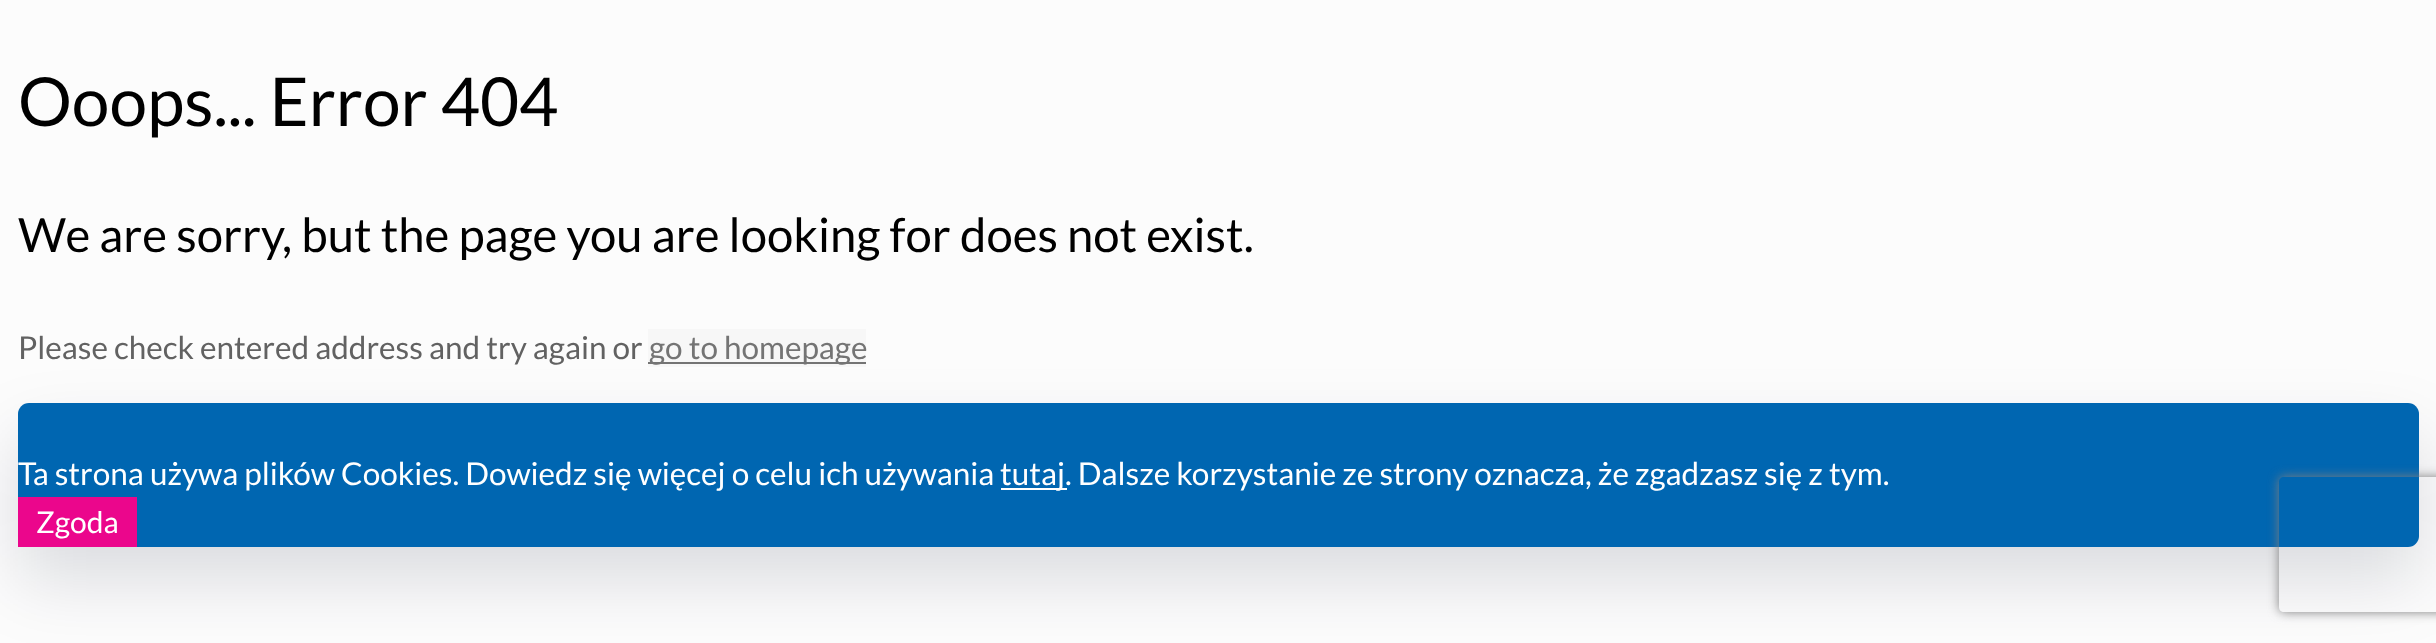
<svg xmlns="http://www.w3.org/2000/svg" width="2436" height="643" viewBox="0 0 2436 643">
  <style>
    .t1 { font: 67.5px Lato; fill: #000; }
    .t2 { font: 47.25px Lato; fill: #000; }
    .t3 { font: 31.5px Lato; fill: #626262; }
    .t4 { font: 31.5px Lato; fill: #747474; }
    .t5 { font: 31.5px Lato; fill: #fff; }
    .t6 { font: 30px Lato; fill: #fff; }
  </style>
  <defs>
    <clipPath id="clip1"><path d="M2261 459H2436V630H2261ZM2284 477H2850C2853 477 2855 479 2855 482V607C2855 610 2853 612 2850 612H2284C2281 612 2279 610 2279 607V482C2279 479 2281 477 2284 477Z" clip-rule="evenodd"/></clipPath>
  </defs>
  <rect width="100%" height="100%" fill="#fcfcfc"/>
  <text x="18" y="126" class="t1">Ooops... Error 404</text>
  <text x="18" y="252" class="t2">We are sorry, but the page you are looking for does not exist.</text>
  <rect x="18" y="437" width="2401" height="144" rx="11" fill="#01072721" filter="blur(34px)"/>
  <text x="18" y="359" class="t3">Please check entered address and try again or</text>
  <rect x="648" y="329" width="218" height="38" fill="#f7f7f7"/>
  <rect x="648" y="362" width="218" height="2" fill="#747474"/>
  <text x="649" y="359" class="t4">go to homepage</text>
  <rect x="18" y="403" width="2401" height="144" rx="11" fill="#0066b1"/>
  <text x="18" y="485" class="t5">Ta strona używa plików Cookies. Dowiedz się więcej o celu ich używania</text>
  <rect x="1001" y="488" width="66" height="2" fill="#fff"/>
  <text x="1000" y="485" class="t5">tutaj. Dalsze korzystanie ze strony oznacza, że zgadzasz się z tym.</text>
  <rect x="18" y="497" width="119" height="50" fill="#eb068c"/>
  <text x="36" y="533" class="t6">Zgoda</text>
  <g clip-path="url(#clip1)">
    <rect x="2279" y="477" width="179" height="135" rx="5" fill="#808080" filter="blur(5.5px)"/>
  </g>
</svg>
